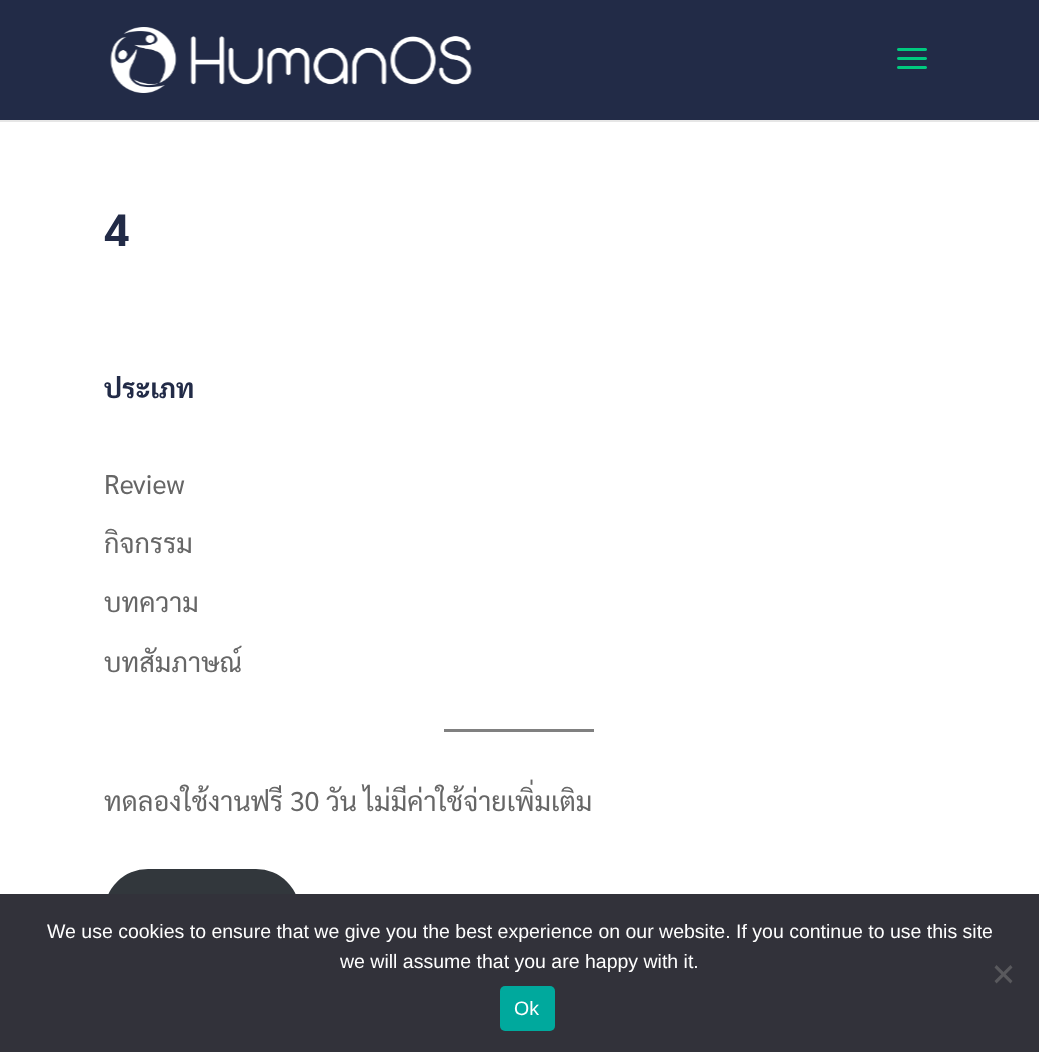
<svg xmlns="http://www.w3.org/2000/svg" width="1039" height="1052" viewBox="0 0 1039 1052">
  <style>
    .t1 { font: bold 45px Sarabun; fill: #222b47; }
    .t2 { font: bold 27px Sarabun; fill: #222b47; }
    .t3 { font: 27px Sarabun; fill: #666; }
    .t4 { font: 19.5px Liberation Sans; fill: #fff; }
  </style>
  <rect width="100%" height="100%" fill="#fff"/>
  <path d="M0 120V122H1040V2V120Z" fill="#e6e6e6"/>
  <rect x="0" y="0" width="1039" height="120" fill="#222b47"/>
  <image x="110" y="27" width="362" height="66" href="images/1.png"/>
  <image x="897" y="48" width="30" height="21" href="images/2.png"/>
  <text x="104" y="246" class="t1">4</text>
  <text x="104" y="398" class="t2">ประเภท</text>
  <text x="104" y="494" class="t3">Review</text>
  <text x="104" y="553" class="t3">กิจกรรม</text>
  <text x="104" y="612" class="t3">บทความ</text>
  <text x="104" y="672" class="t3">บทสัมภาษณ์</text>
  <rect x="444" y="729" width="150" height="3" fill="#808080"/>
  <text x="104" y="811" class="t3">ทดลองใช้งานฟรี 30 วัน ไม่มีค่าใช้จ่ายเพิ่มเติม</text>
  <rect x="104" y="869" width="196" height="88" rx="44" fill="#32373c"/>
  <rect x="0" y="894" width="1039" height="158" fill="#32323a"/>
  <text x="47" y="938" class="t4">We use cookies to ensure that we give you the best experience on our website. If you continue to use this site</text>
  <text x="340" y="968" class="t4">we will assume that you are happy with it.</text>
  <path d="M1010.5 965L1012.5 967.5L996.5 983.5L994.5 981Z" fill="#59595d"/>
  <path d="M994.5 967.5L996.5 965L1012.5 981L1010.5 983.5Z" fill="#59595d"/>
  <rect x="500" y="986" width="55" height="45" rx="5" fill="#00a99d"/>
  <text x="514" y="1015" class="t4">Ok</text>
</svg>
